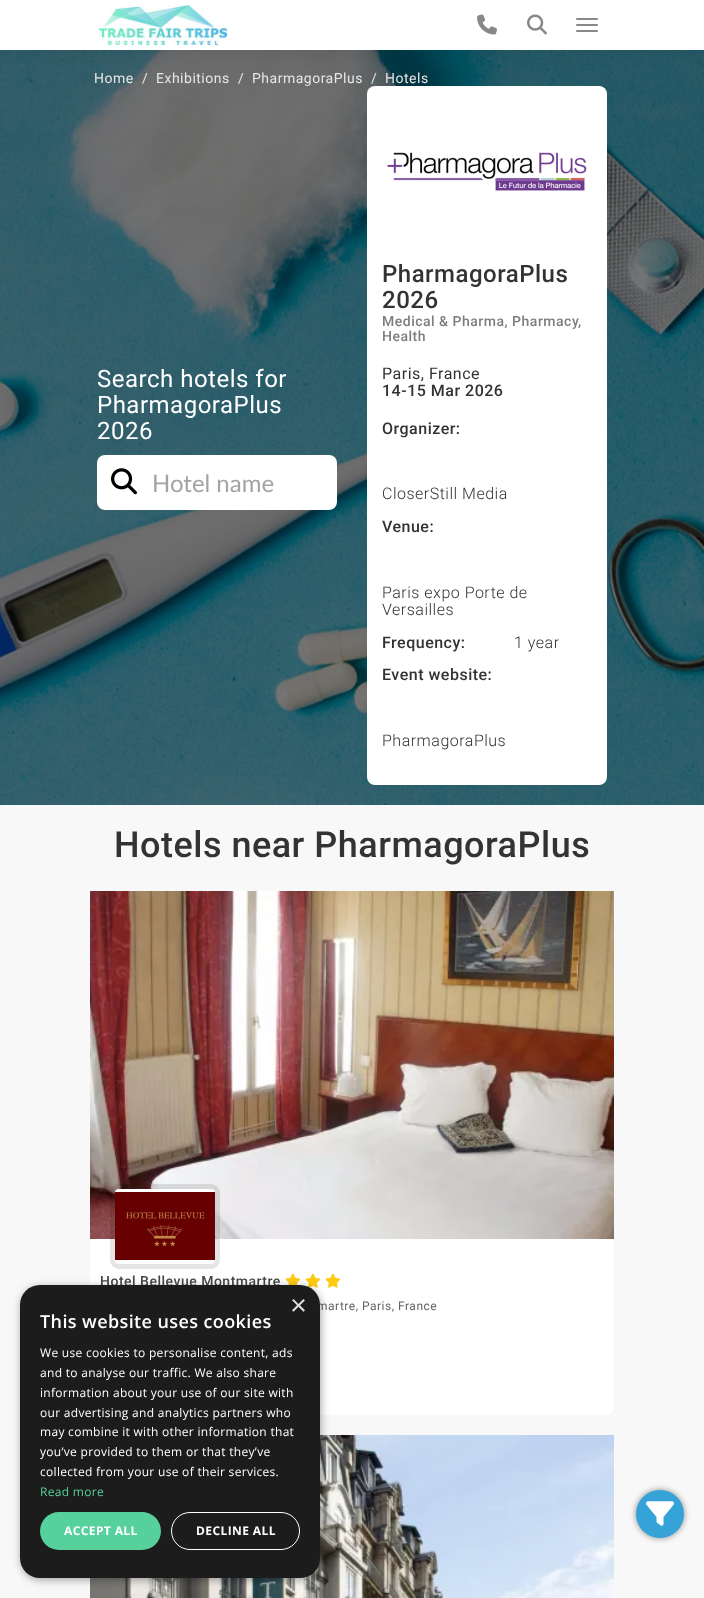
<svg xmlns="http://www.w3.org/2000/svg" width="704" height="1598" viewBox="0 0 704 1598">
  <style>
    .t1 { font: 14px Roboto; letter-spacing: 0.5px; fill: #e6e6e6; }
    .t2 { font: 24px Roboto; letter-spacing: 0.5px; fill: #fff; }
    .t3 { font: 24px Lato; fill: #a3a3a3; }
    .t4 { font: 500 24px Roboto; letter-spacing: 0.5px; fill: #333; }
    .t5 { font: 500 14px Roboto; letter-spacing: 0.5px; fill: #7d7d7d; }
    .t6 { font: 16px Roboto; letter-spacing: 0.5px; fill: #333; }
    .t7 { font: 500 16px Roboto; letter-spacing: 0.5px; fill: #333; }
    .t8 { font: 300 16px Roboto; letter-spacing: 0.5px; fill: #333; }
    .t9 { font: 500 36px Roboto; letter-spacing: 0.5px; fill: #333; }
    .t10 { font: 500 14px Roboto; letter-spacing: 0.5px; fill: #464646; }
    .t11 { font: 12px Roboto; letter-spacing: 0.5px; fill: #646464; }
    .t12 { font: 29px Liberation Sans; fill: #ddd; }
    .t13 { font: 600 18px Open Sans; letter-spacing: 0.4px; fill: #fff; }
    .t14 { font: 12px Open Sans; letter-spacing: 0.3px; fill: #fff; }
    .t15 { font: 12px Open Sans; letter-spacing: 0.3px; fill: #56d19c; }
    .t16 { font: bold 12px Open Sans; letter-spacing: 0.4px; fill: #fff; }
  </style>
  <defs>
    <linearGradient id="g1" gradientUnits="userSpaceOnUse" x1="352" y1="50" x2="352" y2="805"><stop offset="0" stop-color="#000" stop-opacity="0.53"/><stop offset="1" stop-color="#000" stop-opacity="0.5"/></linearGradient>
  </defs>
  <rect width="100%" height="100%" fill="#f8f8f8"/>
  <image x="0" y="50" width="704" height="755" href="images/4.png"/>
  <rect x="0" y="4" width="704" height="50" fill="#0000000d" filter="blur(7px)"/>
  <rect x="0" y="0" width="704" height="50" fill="#fff"/>
  <image x="99" y="5" width="128" height="40" href="images/1.png"/>
  <rect x="576" y="18" width="22" height="2" rx="1" fill="#888"/>
  <rect x="576" y="24" width="22" height="2" rx="1" fill="#888"/>
  <rect x="576" y="30" width="22" height="2" rx="1" fill="#888"/>
  <image x="477" y="14" width="20" height="21" href="images/2.png"/>
  <image x="527" y="14" width="20" height="21" href="images/3.png"/>
  <rect x="0" y="50" width="704" height="755" fill="url(#g1)"/>
  <text x="94" y="83" class="t1">Home</text>
  <text x="142" y="83" class="t1">/</text>
  <text x="156" y="83" class="t1">Exhibitions</text>
  <text x="238" y="83" class="t1">/</text>
  <text x="252" y="83" class="t1">PharmagoraPlus</text>
  <text x="371" y="83" class="t1">/</text>
  <text x="385" y="83" class="t1">Hotels</text>
  <text x="97" y="387" class="t2">Search hotels for</text>
  <text x="97" y="413" class="t2">PharmagoraPlus</text>
  <text x="97" y="439" class="t2">2026</text>
  <rect x="97" y="455" width="240" height="55" rx="8" fill="#fff"/>
  <image x="111" y="468" width="26" height="27" href="images/5.png"/>
  <text x="152" y="492" class="t3">Hotel name</text>
  <rect x="367" y="86" width="240" height="699" rx="8" fill="#fff"/>
  <image x="387" y="152" width="200" height="41" href="images/6.png"/>
  <text x="382" y="282" class="t4">PharmagoraPlus</text>
  <text x="382" y="308" class="t4">2026</text>
  <text x="382" y="326" class="t5">Medical &amp; Pharma, Pharmacy</text>
  <text x="578" y="326" class="t5">,</text>
  <text x="382" y="341" class="t5">Health</text>
  <text x="382" y="379" class="t6">Paris, France</text>
  <text x="382" y="396" class="t7">14-15 Mar 2026</text>
  <text x="382" y="434" class="t7">Organizer:</text>
  <text x="382" y="499" class="t8">CloserStill Media</text>
  <text x="382" y="532" class="t7">Venue:</text>
  <text x="382" y="598" class="t8">Paris expo Porte de</text>
  <text x="382" y="615" class="t8">Versailles</text>
  <text x="382" y="648" class="t7">Frequency:</text>
  <text x="514" y="648" class="t8">1 year</text>
  <text x="382" y="680" class="t7">Event website:</text>
  <text x="382" y="746" class="t8">PharmagoraPlus</text>
  <text x="114" y="857" class="t9">Hotels near PharmagoraPlus</text>
  <path d="M90 891H614V1407C614 1411.5 610.5 1415 606 1415H98C93.5 1415 90 1411.5 90 1407Z" fill="#fff"/>
  <image x="90" y="891" width="524" height="348" href="images/7.png"/>
  <rect x="112.5" y="1186.5" width="105" height="80" rx="6.5" fill="none" stroke="#0000001a" stroke-width="5"/>
  <rect x="115" y="1189" width="100" height="75" rx="4" fill="#fff"/>
  <image x="115" y="1192" width="100" height="68" href="images/8.png"/>
  <text x="100" y="1286" class="t10">Hotel Bellevue Montmartre</text>
  <image x="285" y="1273" width="16" height="12" href="images/9.png"/>
  <image x="305" y="1273" width="16" height="15" href="images/10.png"/>
  <image x="325" y="1273" width="16" height="15" href="images/10.png"/>
  <text x="317" y="1310" class="t11">martre, Paris, France</text>
  <image x="90" y="1435" width="524" height="163" href="images/11.png"/>
  <rect x="636" y="1490" width="48" height="48" rx="24" fill="#00000073" filter="blur(3px)"/>
  <circle cx="660" cy="1514" r="24" fill="#36a3d8"/>
  <image x="646" y="1501" width="28" height="25" href="images/12.png"/>
  <rect x="21" y="1287" width="300" height="293" rx="20" fill="#00000059" filter="blur(4px)"/>
  <rect x="20" y="1285" width="300" height="293" rx="20" fill="#1c1c1c"/>
  <text x="290" y="1315" class="t12">×</text>
  <text x="40" y="1328" class="t13">This website uses cookies</text>
  <text x="40" y="1357" class="t14">We use cookies to personalise content, ads</text>
  <text x="40" y="1377" class="t14">and to analyse our traffic. We also share</text>
  <text x="40" y="1397" class="t14">information about your use of our site with</text>
  <text x="40" y="1417" class="t14">our advertising and analytics partners who</text>
  <text x="40" y="1436" class="t14">may combine it with other information that</text>
  <text x="40" y="1456" class="t14">you’ve provided to them or that they’ve</text>
  <text x="40" y="1476" class="t14">collected from your use of their services.</text>
  <text x="40" y="1496" class="t15">Read more</text>
  <rect x="40" y="1512" width="121" height="38" rx="19" fill="#56d19c"/>
  <text x="64" y="1535" class="t16">ACCEPT ALL</text>
  <rect x="171.5" y="1512.5" width="128" height="37" rx="18.5" fill="none" stroke="#fff"/>
  <text x="196" y="1535" class="t16">DECLINE ALL</text>
</svg>
